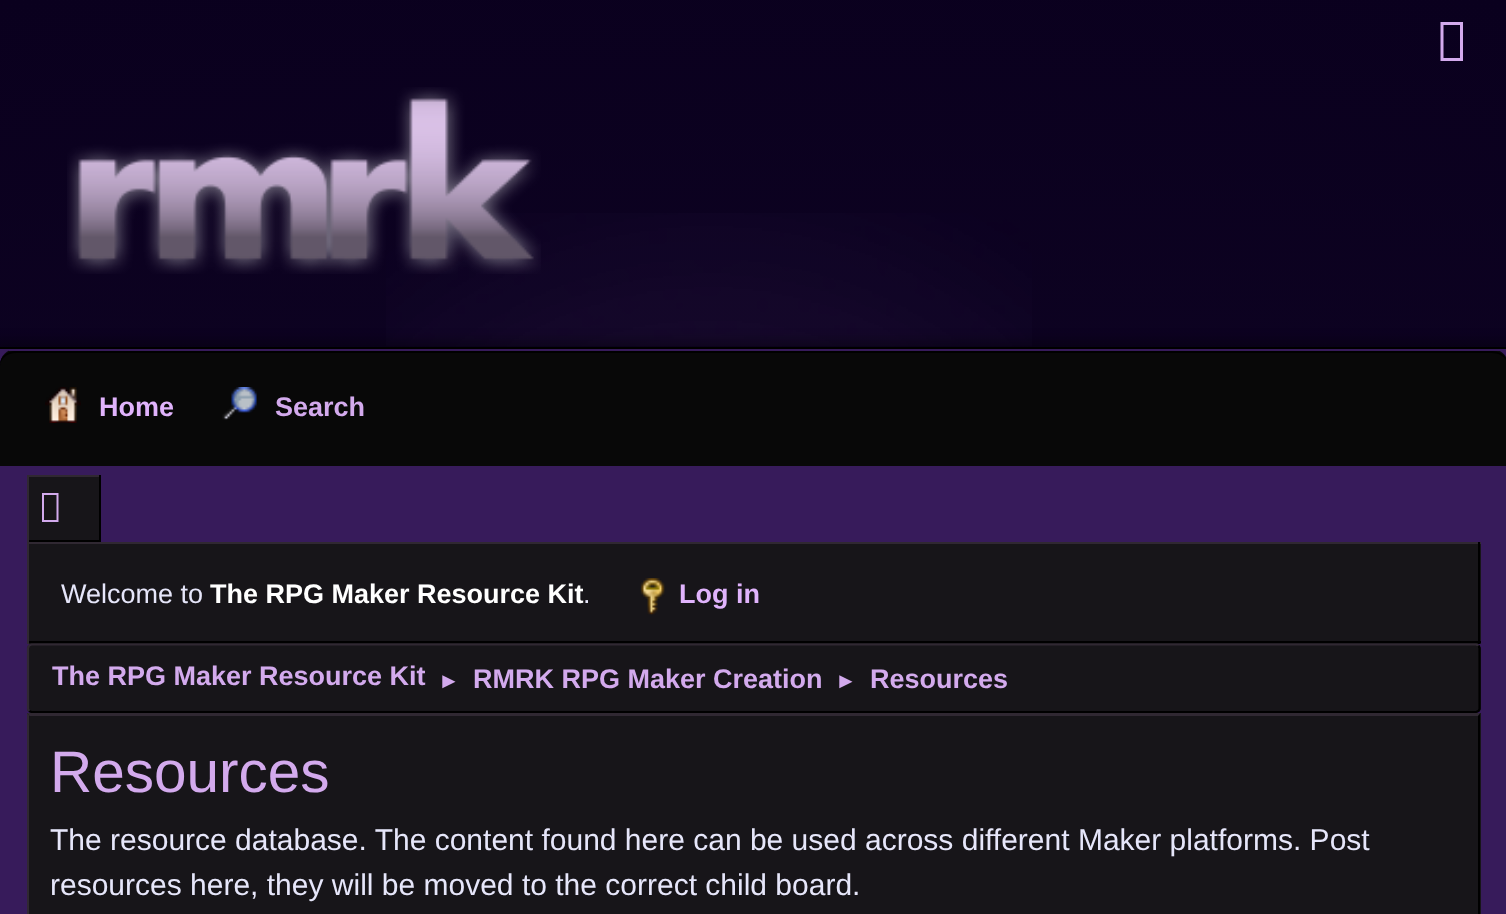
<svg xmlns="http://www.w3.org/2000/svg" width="1506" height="914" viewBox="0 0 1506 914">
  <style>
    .t1 { font: bold 27px Liberation Sans; fill: #e0b3fc; }
    .t2 { font: bold 27px Liberation Sans; fill: #d3aaed; }
    .t3 { font: 27px Liberation Sans; fill: #e6e6fa; }
    .t4 { font: bold 27px Liberation Sans; fill: #fff; }
    .t5 { font: 22px Liberation Sans; fill: #d3aaed; }
    .t6 { font: 58.5px Liberation Sans; fill: #d3aaed; }
    .t7 { font: 30px Liberation Sans; fill: #e6e6fa; }
  </style>
  <defs>
    <radialGradient id="g1" gradientUnits="userSpaceOnUse" cx="754" cy="4120" r="4188"><stop offset="0" stop-color="#27173e"/><stop offset="1" stop-color="#0a001e"/></radialGradient>
  </defs>
  <rect width="100%" height="100%" fill="#fff"/>
  <rect x="0" y="0" width="1506" height="347" fill="url(#g1)"/>
  <image x="386" y="213" width="646" height="134" href="images/1.png"/>
  <path d="M1440.5 61V22H1463V61ZM1443.5 58H1460V25H1443.5Z" fill="#d3aaed"/>
  <image x="67" y="87" width="474" height="187" href="images/2.png"/>
  <rect x="-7" y="340" width="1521" height="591" fill="#0000004d" filter="blur(5.5px)"/>
  <rect x="0" y="349" width="1506" height="565" fill="#371b5b"/>
  <rect x="0" y="347" width="1506" height="2" fill="#000"/>
  <path d="M16 349H1492C1501 349 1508 356 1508 365V466H0V365C0 356 7 349 16 349Z" fill="#080808"/>
  <path d="M16 353H1492C1499 353 1506 357 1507 363C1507 356 1500 351 1492 351H16C7 351 0 357 0 364V367C0 359 7 353 16 353Z" fill="#000"/>
  <rect x="9" y="349" width="1492" height="2" fill="#371b5b"/>
  <image x="45" y="387" width="36" height="36" href="images/3.png"/>
  <text x="99" y="416" class="t1">Home</text>
  <image x="222" y="387" width="35" height="33" href="images/4.png"/>
  <text x="275" y="416" class="t2">Search</text>
  <rect x="29" y="477" width="70" height="63" fill="#171519"/>
  <rect x="27" y="475" width="74" height="2" fill="#302832"/>
  <rect x="99" y="475" width="2" height="67" fill="#000"/>
  <rect x="27" y="540" width="74" height="2" fill="#000"/>
  <rect x="27" y="475" width="2" height="67" fill="#302832"/>
  <path d="M42 522V493H58.5V522ZM44 520H56.5V495H44Z" fill="#d3aaed"/>
  <rect x="29" y="544" width="1452" height="100" fill="#171519"/>
  <rect x="27" y="542" width="1454" height="2" fill="#302832"/>
  <rect x="1478" y="542" width="2" height="102" fill="#000"/>
  <rect x="27" y="641" width="1454" height="2" fill="#000"/>
  <rect x="27" y="542" width="2" height="102" fill="#302832"/>
  <text x="61" y="603" class="t3">Welcome to</text>
  <text x="210" y="603" class="t4">The RPG Maker Resource Kit</text>
  <text x="583" y="603" class="t3">.</text>
  <image x="640" y="578" width="25" height="37" href="images/5.png"/>
  <text x="679" y="603" class="t1">Log in</text>
  <rect x="27" y="644" width="1454" height="69" rx="5" fill="#171519"/>
  <path d="M1478.5 645.5L1479.5 648V709L1478.5 711L1476 712H31.5L29 711" fill="none" stroke="#000" stroke-width="2.2"/>
  <path d="M29 711L28 709V648L29 645.5L31.5 644.5H1476L1478.5 645.5" fill="none" stroke="#302832" stroke-width="2.2"/>
  <text x="52" y="685" class="t2">The RPG Maker Resource Kit</text>
  <text x="438" y="688" class="t5">►</text>
  <text x="473" y="688" class="t2">RMRK RPG Maker Creation</text>
  <text x="835" y="688" class="t5">►</text>
  <text x="870" y="688" class="t2">Resources</text>
  <rect x="27" y="713" width="1454" height="201" fill="#171519"/>
  <path d="M27 713H1480L1478 716H30Z" fill="#302832"/>
  <path d="M1480 714V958C1480 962 1478 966 1476 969L1474 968C1477 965 1478 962 1478 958V716Z" fill="#000"/>
  <path d="M29 716H30L27 713V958C27 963 29 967 32 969L33 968C31 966 29 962 29 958Z" fill="#302832"/>
  <text x="50" y="792" class="t6">Resources</text>
  <text x="50" y="850" class="t7">The resource database. The content found here can be used across different Maker platforms. Post</text>
  <text x="50" y="895" class="t7">resources here, they will be moved to the correct child board.</text>
</svg>
